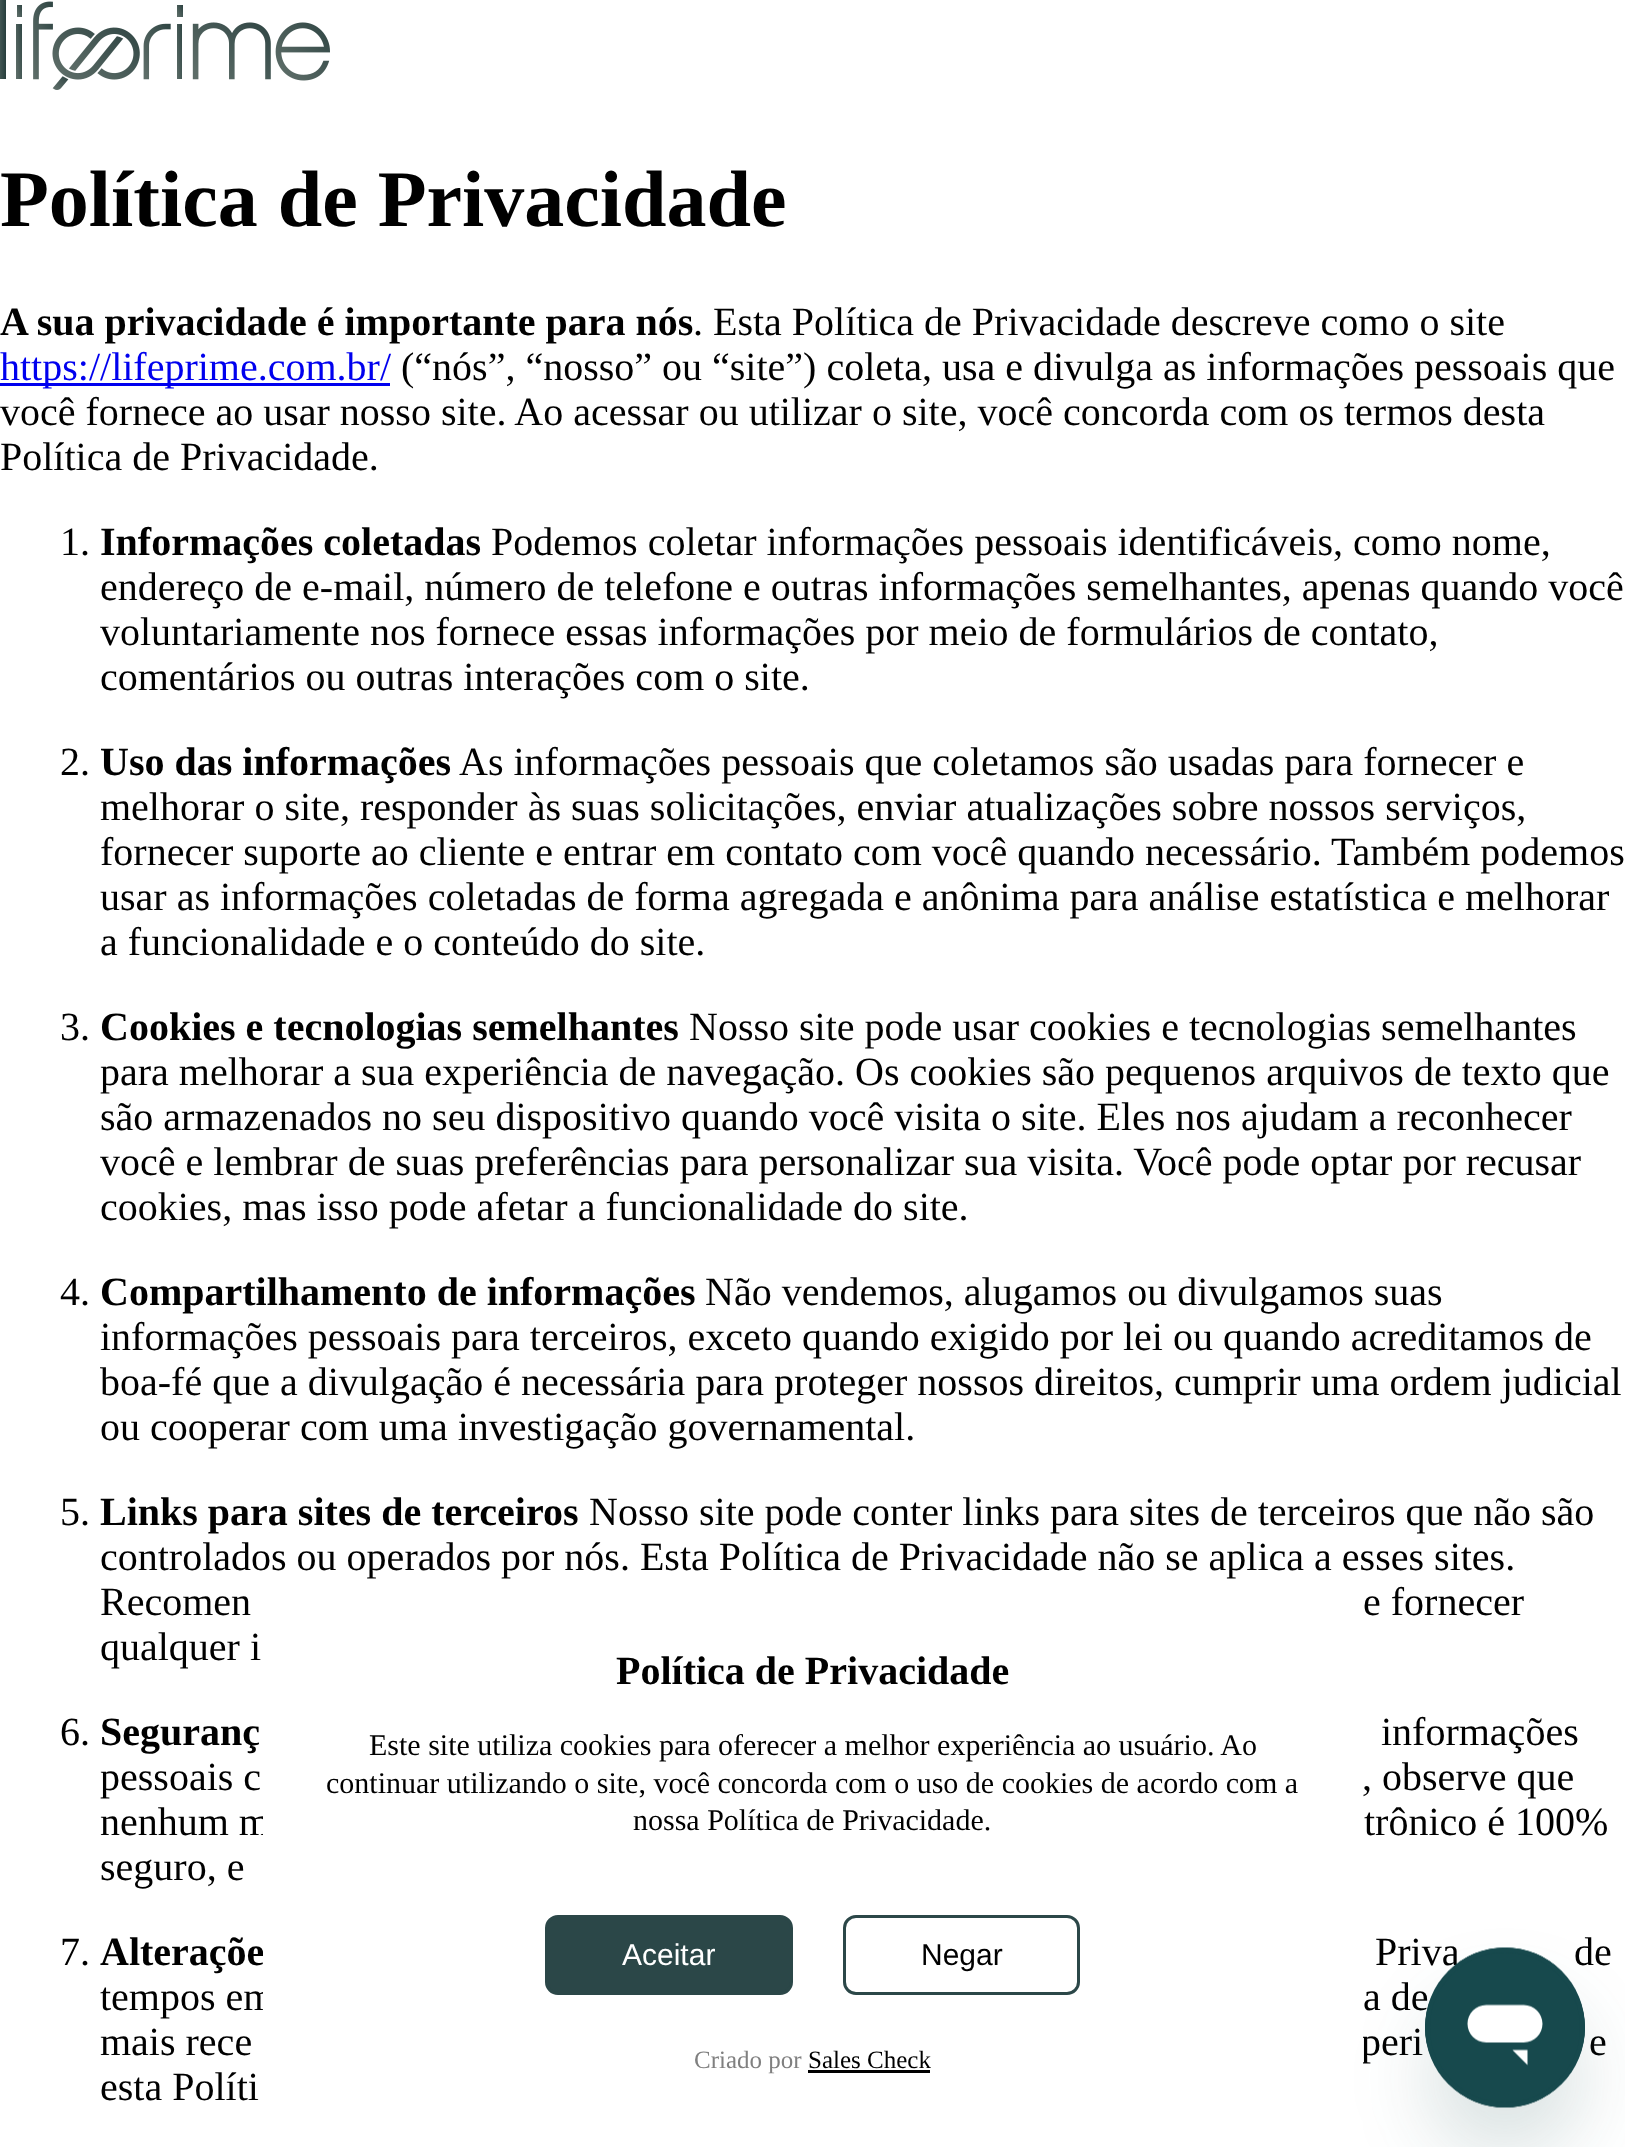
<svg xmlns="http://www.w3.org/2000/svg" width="1625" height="2147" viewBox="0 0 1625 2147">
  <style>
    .t1 { font: bold 80px Liberation Serif; fill: #000; }
    .t2 { font: bold 40px Liberation Serif; fill: #000; }
    .t3 { font: 40px Liberation Serif; fill: #000; }
    .t4 { font: 40px Liberation Serif; fill: #00e; }
    .t5 { font: 30px Liberation Serif; fill: #000; }
    .t6 { font: 30px Liberation Sans; fill: #fff; }
    .t7 { font: 30px Liberation Sans; fill: #000; }
    .t8 { font: 25px Liberation Serif; fill: #808080; }
    .t9 { font: 25px Liberation Serif; fill: #000; }
  </style>
  <rect width="100%" height="100%" fill="#fff"/>
  <image x="0" y="0" width="330" height="90" href="images/1.png"/>
  <text x="0" y="226" class="t1">Política de Privacidade</text>
  <text x="0" y="335" class="t2">A sua privacidade é importante para nós</text>
  <text x="693" y="335" class="t3">. Esta Política de Privacidade descreve como o site</text>
  <rect x="0" y="383" width="390" height="3" fill="#00e"/>
  <text x="0" y="380" class="t4">https://lifeprime.com.br/</text>
  <text x="401" y="380" class="t3">(“nós”, “nosso” ou “site”) coleta, usa e divulga as informações pessoais que</text>
  <text x="0" y="425" class="t3">você fornece ao usar nosso site. Ao acessar ou utilizar o site, você concorda com os termos desta</text>
  <text x="0" y="470" class="t3">Política de Privacidade.</text>
  <text x="60" y="555" class="t3">1.</text>
  <text x="100" y="555" class="t2">Informações coletadas</text>
  <text x="491" y="555" class="t3">Podemos coletar informações pessoais identificáveis, como nome,</text>
  <text x="100" y="600" class="t3">endereço de e-mail, número de telefone e outras informações semelhantes, apenas quando você</text>
  <text x="100" y="645" class="t3">voluntariamente nos fornece essas informações por meio de formulários de contato,</text>
  <text x="100" y="690" class="t3">comentários ou outras interações com o site.</text>
  <text x="60" y="775" class="t3">2.</text>
  <text x="100" y="775" class="t2">Uso das informações</text>
  <text x="459" y="775" class="t3">As informações pessoais que coletamos são usadas para fornecer e</text>
  <text x="100" y="820" class="t3">melhorar o site, responder às suas solicitações, enviar atualizações sobre nossos serviços,</text>
  <text x="100" y="865" class="t3">fornecer suporte ao cliente e entrar em contato com você quando necessário. Também podemos</text>
  <text x="100" y="910" class="t3">usar as informações coletadas de forma agregada e anônima para análise estatística e melhorar</text>
  <text x="100" y="955" class="t3">a funcionalidade e o conteúdo do site.</text>
  <text x="60" y="1040" class="t3">3.</text>
  <text x="100" y="1040" class="t2">Cookies e tecnologias semelhantes</text>
  <text x="689" y="1040" class="t3">Nosso site pode usar cookies e tecnologias semelhantes</text>
  <text x="100" y="1085" class="t3">para melhorar a sua experiência de navegação. Os cookies são pequenos arquivos de texto que</text>
  <text x="100" y="1130" class="t3">são armazenados no seu dispositivo quando você visita o site. Eles nos ajudam a reconhecer</text>
  <text x="100" y="1175" class="t3">você e lembrar de suas preferências para personalizar sua visita. Você pode optar por recusar</text>
  <text x="100" y="1220" class="t3">cookies, mas isso pode afetar a funcionalidade do site.</text>
  <text x="60" y="1305" class="t3">4.</text>
  <text x="100" y="1305" class="t2">Compartilhamento de informações</text>
  <text x="705" y="1305" class="t3">Não vendemos, alugamos ou divulgamos suas</text>
  <text x="100" y="1350" class="t3">informações pessoais para terceiros, exceto quando exigido por lei ou quando acreditamos de</text>
  <text x="100" y="1395" class="t3">boa-fé que a divulgação é necessária para proteger nossos direitos, cumprir uma ordem judicial</text>
  <text x="100" y="1440" class="t3">ou cooperar com uma investigação governamental.</text>
  <text x="60" y="1525" class="t3">5.</text>
  <text x="100" y="1525" class="t2">Links para sites de terceiros</text>
  <text x="589" y="1525" class="t3">Nosso site pode conter links para sites de terceiros que não são</text>
  <text x="100" y="1570" class="t3">controlados ou operados por nós. Esta Política de Privacidade não se aplica a esses sites.</text>
  <text x="100" y="1615" class="t3">Recomen</text>
  <text x="1363" y="1615" class="t3">e fornecer</text>
  <text x="100" y="1660" class="t3">qualquer i</text>
  <text x="60" y="1745" class="t3">6.</text>
  <text x="100" y="1745" class="t2">Seguranç</text>
  <text x="1381" y="1745" class="t3">informações</text>
  <text x="100" y="1790" class="t3">pessoais c</text>
  <text x="1362" y="1790" class="t3">, observe que</text>
  <text x="100" y="1835" class="t3">nenhum m</text>
  <text x="1364" y="1835" class="t3">trônico é 100%</text>
  <text x="100" y="1880" class="t3">seguro, e</text>
  <text x="60" y="1965" class="t3">7.</text>
  <text x="100" y="1965" class="t2">Alteraçõe</text>
  <text x="1375" y="1965" class="t3">Priva</text>
  <text x="1574" y="1965" class="t3">de</text>
  <text x="100" y="2010" class="t3">tempos em</text>
  <text x="1363" y="2010" class="t3">a de</text>
  <text x="100" y="2055" class="t3">mais rece</text>
  <text x="1361" y="2055" class="t3">peri</text>
  <text x="1589" y="2055" class="t3">e</text>
  <text x="100" y="2100" class="t3">esta Políti</text>
  <rect x="263" y="1600" width="1100" height="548" rx="25" fill="#fff"/>
  <text x="616" y="1684" class="t2">Política de Privacidade</text>
  <text x="369" y="1755" class="t5">Este site utiliza cookies para oferecer a melhor experiência ao usuário. Ao</text>
  <text x="326" y="1793" class="t5">continuar utilizando o site, você concorda com o uso de cookies de acordo com a</text>
  <text x="633" y="1830" class="t5">nossa Política de Privacidade.</text>
  <rect x="546.5" y="1916.5" width="245" height="77" rx="11.5" fill="#2b4748" stroke="#2b4748" stroke-width="3"/>
  <text x="622" y="1965" class="t6">Aceitar</text>
  <rect x="844.5" y="1916.5" width="234" height="77" rx="11.5" fill="none" stroke="#2b4748" stroke-width="3"/>
  <text x="921" y="1965" class="t7">Negar</text>
  <text x="694" y="2068" class="t8">Criado por</text>
  <text x="808" y="2068" class="t9">Sales Check</text>
  <rect x="808" y="2070" width="122" height="3" fill="#000"/>
  <rect x="1425" y="1998" width="160" height="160" rx="80" fill="#17494d26" filter="blur(37.5px)"/>
  <image x="1425" y="1947" width="160" height="161" href="images/2.png"/>
</svg>
